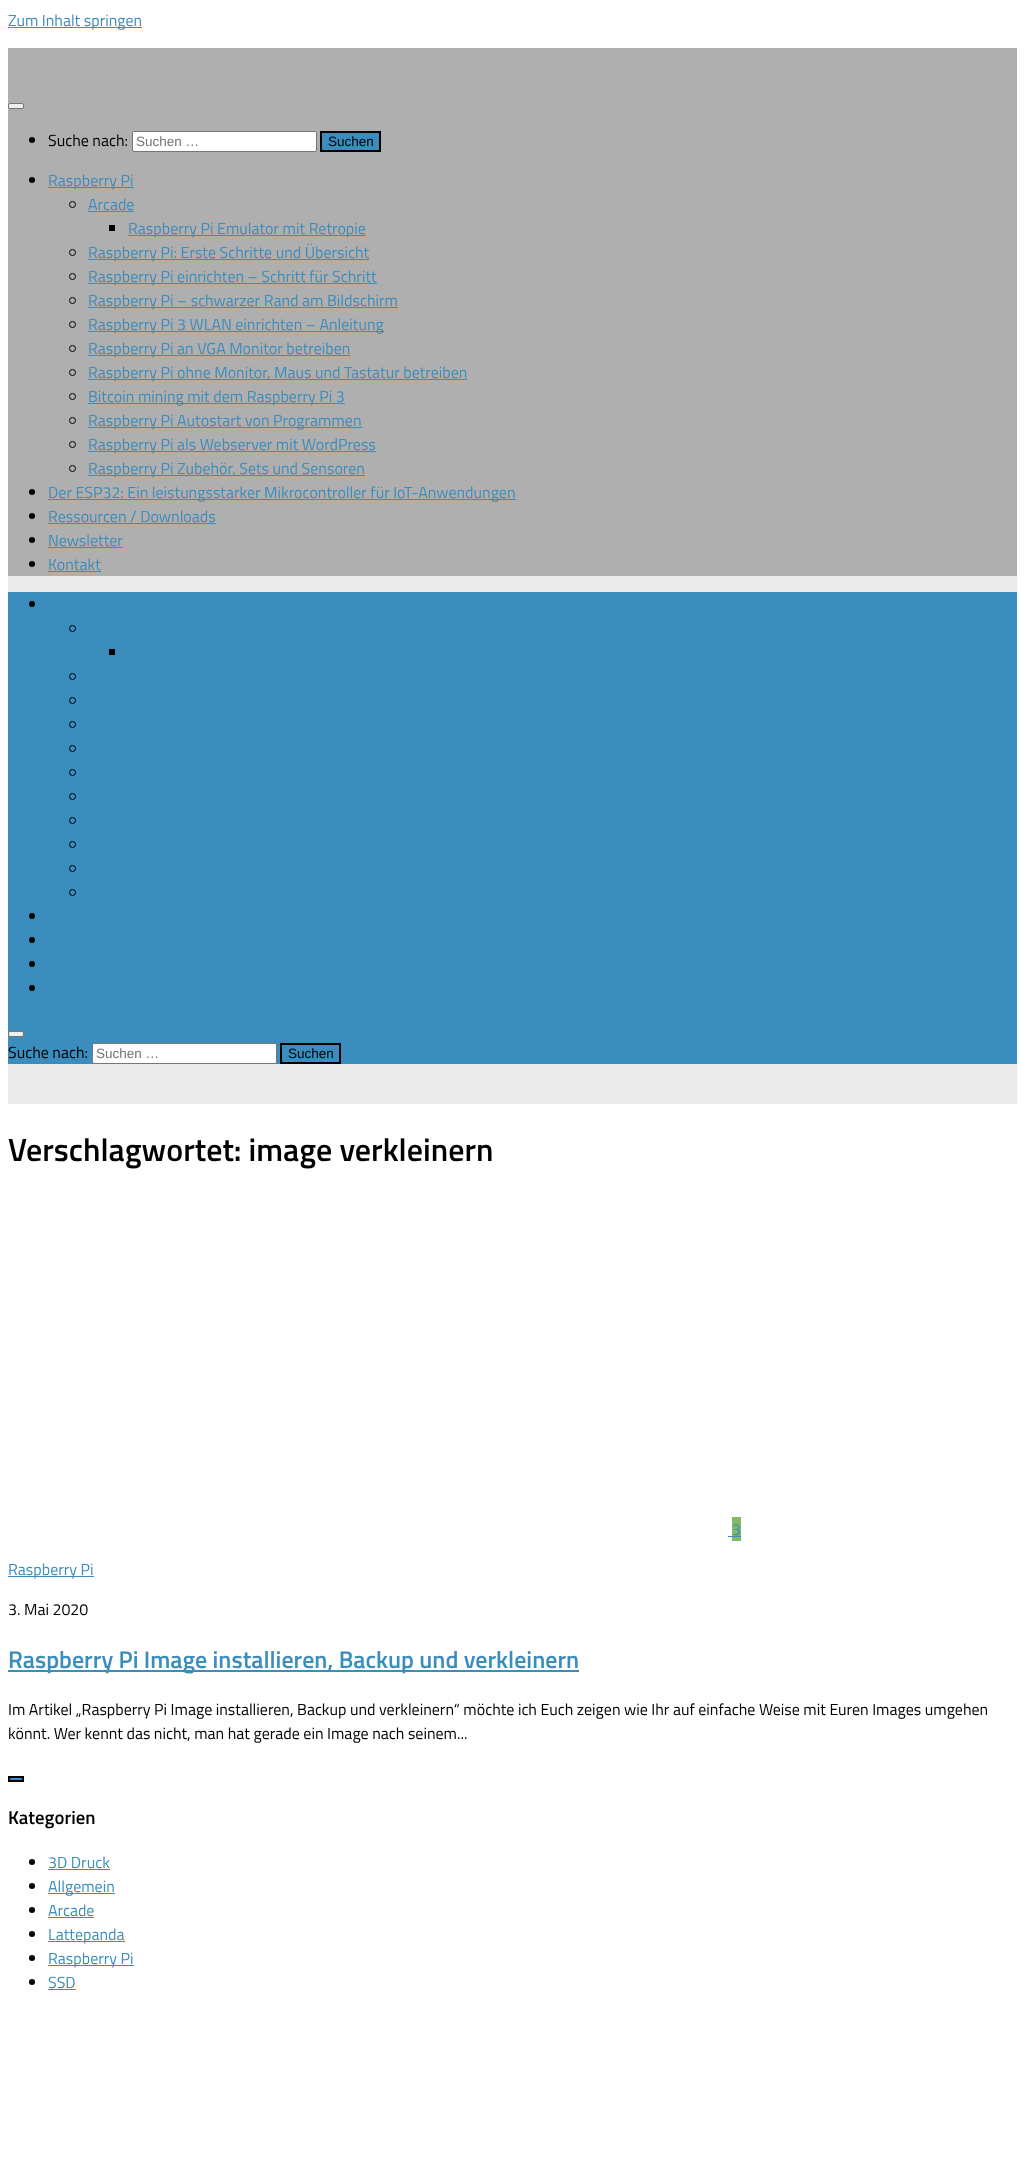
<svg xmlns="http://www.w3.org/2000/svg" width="1025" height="2168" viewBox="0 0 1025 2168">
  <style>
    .t1 { font: 16px Titillium Web; fill: #3b8dbd; }
    .t2 { font: 16px Titillium Web; fill: #000; }
    .t3 { font: 13.5px Liberation Sans; fill: #757575; }
    .t4 { font: 13.5px Liberation Sans; fill: #000; }
    .t5 { font: 600 32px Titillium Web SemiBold; fill: #000; }
    .t6 { font: 600 24px Titillium Web SemiBold; fill: #3b8dbd; }
    .t7 { font: 600 18.75px Titillium Web SemiBold; fill: #000; }
  </style>
  <rect width="100%" height="100%" fill="#fff"/>
  <rect x="8" y="27" width="134" height="1" fill="#3b8dbd"/>
  <text x="8" y="26" class="t1">Zum Inhalt springen</text>
  <rect x="8" y="576" width="1009" height="528" fill="#eaeaea"/>
  <rect x="8" y="48" width="1009" height="528" fill="#afafaf"/>
  <rect x="8.5" y="103.5" width="15" height="5" rx="1.5" fill="#efefef" stroke="#767676"/>
  <circle cx="32" cy="140" r="3" fill="#000"/>
  <text x="48" y="146" class="t2">Suche nach:</text>
  <rect x="132.5" y="131.5" width="184" height="20" rx="1.5" fill="#fff" stroke="#767676"/>
  <text x="136" y="146" class="t3">Suchen …</text>
  <rect x="321" y="132" width="59" height="19" fill="#3b8dbd" stroke="#000" stroke-width="2"/>
  <text x="328" y="146" class="t4">Suchen</text>
  <circle cx="32" cy="180" r="3" fill="#000"/>
  <rect x="48" y="187" width="86" height="1" fill="#3b8dbd"/>
  <text x="48" y="186" class="t1">Raspberry Pi</text>
  <circle cx="72.5" cy="204.5" r="3" fill="none" stroke="#000"/>
  <text x="88" y="210" class="t1">Arcade</text>
  <rect x="88" y="211" width="46" height="1" fill="#3b8dbd"/>
  <rect x="109" y="225" width="6" height="6" fill="#000"/>
  <rect x="128" y="235" width="238" height="1" fill="#3b8dbd"/>
  <text x="128" y="234" class="t1">Raspberry Pi Emulator mit Retropie</text>
  <circle cx="72.5" cy="252.5" r="3" fill="none" stroke="#000"/>
  <rect x="88" y="259" width="281" height="1" fill="#3b8dbd"/>
  <text x="88" y="258" class="t1">Raspberry Pi: Erste Schritte und Übersicht</text>
  <circle cx="72.5" cy="276.5" r="3" fill="none" stroke="#000"/>
  <rect x="88" y="283" width="289" height="1" fill="#3b8dbd"/>
  <text x="88" y="282" class="t1">Raspberry Pi einrichten – Schritt für Schritt</text>
  <circle cx="72.5" cy="300.5" r="3" fill="none" stroke="#000"/>
  <rect x="88" y="307" width="310" height="1" fill="#3b8dbd"/>
  <text x="88" y="306" class="t1">Raspberry Pi – schwarzer Rand am Bildschirm</text>
  <circle cx="72.5" cy="324.5" r="3" fill="none" stroke="#000"/>
  <rect x="88" y="331" width="296" height="1" fill="#3b8dbd"/>
  <text x="88" y="330" class="t1">Raspberry Pi 3 WLAN einrichten – Anleitung</text>
  <circle cx="72.5" cy="348.5" r="3" fill="none" stroke="#000"/>
  <rect x="88" y="355" width="262" height="1" fill="#3b8dbd"/>
  <text x="88" y="354" class="t1">Raspberry Pi an VGA Monitor betreiben</text>
  <circle cx="72.5" cy="372.5" r="3" fill="none" stroke="#000"/>
  <rect x="88" y="379" width="379" height="1" fill="#3b8dbd"/>
  <text x="88" y="378" class="t1">Raspberry Pi ohne Monitor, Maus und Tastatur betreiben</text>
  <circle cx="72.5" cy="396.5" r="3" fill="none" stroke="#000"/>
  <rect x="88" y="403" width="257" height="1" fill="#3b8dbd"/>
  <text x="88" y="402" class="t1">Bitcoin mining mit dem Raspberry Pi 3</text>
  <circle cx="72.5" cy="420.5" r="3" fill="none" stroke="#000"/>
  <rect x="88" y="427" width="274" height="1" fill="#3b8dbd"/>
  <text x="88" y="426" class="t1">Raspberry Pi Autostart von Programmen</text>
  <circle cx="72.5" cy="444.5" r="3" fill="none" stroke="#000"/>
  <rect x="88" y="451" width="288" height="1" fill="#3b8dbd"/>
  <text x="88" y="450" class="t1">Raspberry Pi als Webserver mit WordPress</text>
  <circle cx="72.5" cy="468.5" r="3" fill="none" stroke="#000"/>
  <rect x="88" y="475" width="277" height="1" fill="#3b8dbd"/>
  <text x="88" y="474" class="t1">Raspberry Pi Zubehör, Sets und Sensoren</text>
  <circle cx="32" cy="492" r="3" fill="#000"/>
  <rect x="48" y="499" width="468" height="1" fill="#3b8dbd"/>
  <text x="48" y="498" class="t1">Der ESP32: Ein leistungsstarker Mikrocontroller für IoT-Anwendungen</text>
  <circle cx="32" cy="516" r="3" fill="#000"/>
  <text x="48" y="522" class="t1">Ressourcen / Downloads</text>
  <rect x="48" y="523" width="168" height="1" fill="#3b8dbd"/>
  <circle cx="32" cy="540" r="3" fill="#000"/>
  <text x="48" y="546" class="t1">Newsletter</text>
  <rect x="48" y="547" width="75" height="1" fill="#3b8dbd"/>
  <circle cx="32" cy="564" r="3" fill="#000"/>
  <text x="48" y="570" class="t1">Kontakt</text>
  <rect x="48" y="571" width="53" height="1" fill="#3b8dbd"/>
  <rect x="8" y="592" width="1009" height="472" fill="#3b8dbd"/>
  <circle cx="32" cy="604" r="3" fill="#000"/>
  <circle cx="72.5" cy="628.5" r="3" fill="none" stroke="#000"/>
  <rect x="109" y="649" width="6" height="6" fill="#000"/>
  <circle cx="72.5" cy="676.5" r="3" fill="none" stroke="#000"/>
  <circle cx="72.5" cy="700.5" r="3" fill="none" stroke="#000"/>
  <circle cx="72.5" cy="724.5" r="3" fill="none" stroke="#000"/>
  <circle cx="72.5" cy="748.5" r="3" fill="none" stroke="#000"/>
  <circle cx="72.5" cy="772.5" r="3" fill="none" stroke="#000"/>
  <circle cx="72.5" cy="796.5" r="3" fill="none" stroke="#000"/>
  <circle cx="72.5" cy="820.5" r="3" fill="none" stroke="#000"/>
  <circle cx="72.5" cy="844.5" r="3" fill="none" stroke="#000"/>
  <circle cx="72.5" cy="868.5" r="3" fill="none" stroke="#000"/>
  <circle cx="72.5" cy="892.5" r="3" fill="none" stroke="#000"/>
  <circle cx="32" cy="916" r="3" fill="#000"/>
  <circle cx="32" cy="940" r="3" fill="#000"/>
  <circle cx="32" cy="964" r="3" fill="#000"/>
  <circle cx="32" cy="988" r="3" fill="#000"/>
  <rect x="8.5" y="1031.5" width="15" height="5" rx="1.5" fill="#efefef" stroke="#767676"/>
  <text x="8" y="1058" class="t2">Suche nach:</text>
  <rect x="92.5" y="1043.5" width="184" height="20" rx="1.5" fill="#fff" stroke="#767676"/>
  <text x="96" y="1058" class="t3">Suchen …</text>
  <rect x="281" y="1044" width="59" height="19" fill="none" stroke="#000" stroke-width="2"/>
  <text x="288" y="1058" class="t4">Suchen</text>
  <text x="8" y="1161" class="t5">Verschlagwortet: image verkleinern</text>
  <rect x="732" y="1517" width="9" height="24" fill="#82b965"/>
  <text x="732" y="1535" class="t1">3</text>
  <rect x="732" y="1536" width="9" height="1" fill="#3b8dbd"/>
  <rect x="728" y="1536" width="4" height="1" fill="#3b8dbd"/>
  <rect x="8" y="1576" width="86" height="1" fill="#3b8dbd"/>
  <text x="8" y="1575" class="t1">Raspberry Pi</text>
  <text x="8" y="1615" class="t2">3. Mai 2020</text>
  <rect x="8" y="1670" width="571" height="2" fill="#3b8dbd"/>
  <text x="8" y="1668" class="t6">Raspberry Pi Image installieren, Backup und verkleinern</text>
  <text x="8" y="1715" class="t2">Im Artikel „Raspberry Pi Image installieren, Backup und verkleinern“ möchte ich Euch zeigen wie Ihr auf einfache Weise mit Euren Images umgehen</text>
  <text x="8" y="1739" class="t2">könnt. Wer kennt das nicht, man hat gerade ein Image nach seinem...</text>
  <rect x="9" y="1777" width="14" height="4" fill="#3b8dbd" stroke="#000" stroke-width="2"/>
  <text x="8" y="1824" class="t7">Kategorien</text>
  <circle cx="32" cy="1862" r="3" fill="#000"/>
  <text x="48" y="1868" class="t1">3D Druck</text>
  <rect x="48" y="1869" width="62" height="1" fill="#3b8dbd"/>
  <circle cx="32" cy="1886" r="3" fill="#000"/>
  <rect x="48" y="1893" width="67" height="1" fill="#3b8dbd"/>
  <text x="48" y="1892" class="t1">Allgemein</text>
  <circle cx="32" cy="1910" r="3" fill="#000"/>
  <text x="48" y="1916" class="t1">Arcade</text>
  <rect x="48" y="1917" width="46" height="1" fill="#3b8dbd"/>
  <circle cx="32" cy="1934" r="3" fill="#000"/>
  <rect x="48" y="1941" width="77" height="1" fill="#3b8dbd"/>
  <text x="48" y="1940" class="t1">Lattepanda</text>
  <circle cx="32" cy="1958" r="3" fill="#000"/>
  <rect x="48" y="1965" width="86" height="1" fill="#3b8dbd"/>
  <text x="48" y="1964" class="t1">Raspberry Pi</text>
  <circle cx="32" cy="1982" r="3" fill="#000"/>
  <text x="48" y="1988" class="t1">SSD</text>
  <rect x="48" y="1989" width="28" height="1" fill="#3b8dbd"/>
</svg>
